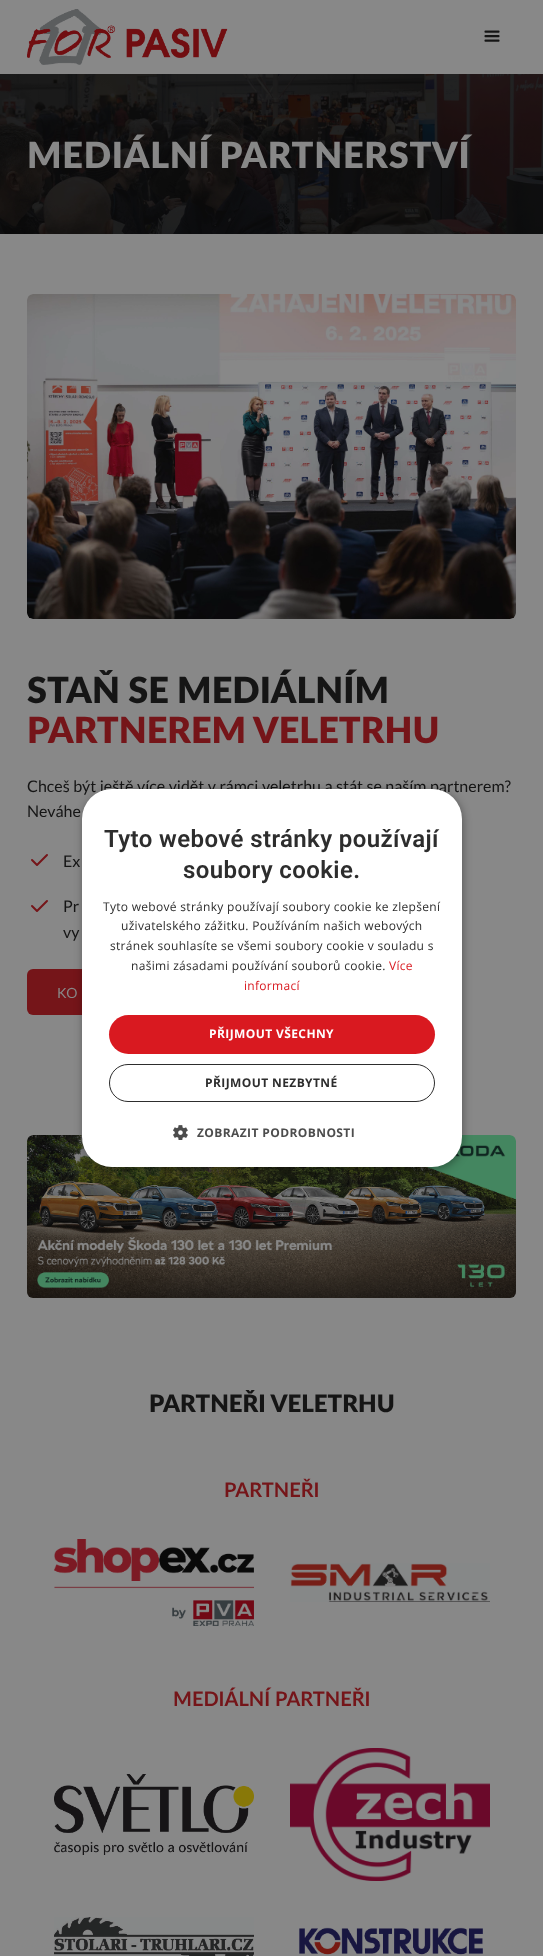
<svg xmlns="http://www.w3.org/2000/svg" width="543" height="1956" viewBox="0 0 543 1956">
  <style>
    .t1 { font: 900 36px Lato; letter-spacing: 0.75px; fill: #888; }
    .t2 { font: 900 36px Lato; fill: #151515; }
    .t3 { font: 900 36px Lato; fill: #751519; }
    .t4 { font: 16px Lato; fill: #151515; }
    .t5 { font: 14px Lato; fill: #888; }
    .t6 { font: 900 24px Lato; fill: #151515; }
    .t7 { font: bold 20px Lato; fill: #751519; }
    .t8 { font: 600 24px Roboto; letter-spacing: 0.4px; fill: #2d2d2d; }
    .t9 { font: 12px Open Sans; letter-spacing: 0.3px; fill: #2d2d2d; }
    .t10 { font: 12px Open Sans; letter-spacing: 0.3px; fill: #d91920; }
    .t11 { font: bold 12px Open Sans; letter-spacing: 0.4px; fill: #fff; }
    .t12 { font: bold 12px Open Sans; letter-spacing: 0.4px; fill: #2d2d2d; }
    .t13 { font: bold 12px Open Sans; letter-spacing: 0.4px; fill: #4d4d4d; }
  </style>
  <rect width="100%" height="100%" fill="#888"/>
  <image x="27" y="9" width="201" height="56" href="images/1.png"/>
  <image x="484" y="30" width="16" height="12" href="images/2.png"/>
  <image x="0" y="74" width="543" height="160" href="images/3.png"/>
  <text x="27" y="168" class="t1">MEDIÁLNÍ PARTNERSTVÍ</text>
  <image x="27" y="294" width="489" height="325" href="images/4.png"/>
  <text x="27" y="703" class="t2">STAŇ SE MEDIÁLNÍM</text>
  <text x="27" y="743" class="t3">PARTNEREM VELETRHU</text>
  <text x="27" y="792" word-spacing="0.4" class="t4">Chceš být ještě více vidět v rámci veletrhu a stát se naším partnerem?</text>
  <text x="27" y="817" word-spacing="1" class="t4">Neváhe</text>
  <path d="M32 860L37 865L47 855M32 906L37 911L47 901" fill="none" stroke="#751519" stroke-width="2" stroke-linecap="round" stroke-linejoin="round"/>
  <text x="63" y="867" class="t4">Ex</text>
  <text x="63" y="912" class="t4">Pr</text>
  <text x="63" y="938" class="t4">vy</text>
  <rect x="27" y="969" width="178" height="46" rx="6" fill="#751519"/>
  <text x="57" y="998" class="t5">KO</text>
  <image x="27" y="1135" width="489" height="163" href="images/5.png"/>
  <text x="149" y="1412" class="t6">PARTNEŘI VELETRHU</text>
  <text x="224" y="1497" class="t7">PARTNEŘI</text>
  <image x="54" y="1539" width="200" height="87" href="images/6.png"/>
  <image x="290" y="1563" width="200" height="39" href="images/7.png"/>
  <text x="173" y="1706" class="t7">MEDIÁLNÍ PARTNEŘI</text>
  <image x="54" y="1774" width="200" height="81" href="images/8.png"/>
  <image x="290" y="1748" width="200" height="133" href="images/9.png"/>
  <image x="54" y="1917" width="200" height="39" href="images/10.png"/>
  <image x="299" y="1927" width="184" height="28" href="images/11.png"/>
  <rect x="83" y="791" width="380" height="378" rx="30" fill="#00000059" filter="blur(4px)"/>
  <rect x="82" y="789" width="380" height="378" rx="30" fill="#fff"/>
  <text x="104" y="847" class="t8">Tyto webové stránky používají</text>
  <text x="183" y="878" class="t8">soubory cookie.</text>
  <text x="103" y="911" class="t9">Tyto webové stránky používají soubory cookie ke zlepšení</text>
  <text x="121" y="930" class="t9">uživatelského zážitku. Používáním našich webových</text>
  <text x="110" y="950" class="t9">stránek souhlasíte se všemi soubory cookie v souladu s</text>
  <text x="131" y="970" class="t9">našimi zásadami používání souborů cookie.</text>
  <text x="389" y="970" class="t10">Více</text>
  <text x="244" y="990" class="t10">informací</text>
  <rect x="109" y="1015" width="326" height="39" rx="19.5" fill="#d91920"/>
  <text x="209" y="1038" class="t11">PŘIJMOUT VŠECHNY</text>
  <rect x="109.5" y="1064.5" width="325" height="37" rx="18.5" fill="none" stroke="#2d2d2d"/>
  <text x="205" y="1087" class="t12">PŘIJMOUT NEZBYTNÉ</text>
  <image x="173" y="1125" width="15" height="15" href="images/12.png"/>
  <text x="197" y="1137" class="t13">ZOBRAZIT PODROBNOSTI</text>
</svg>
